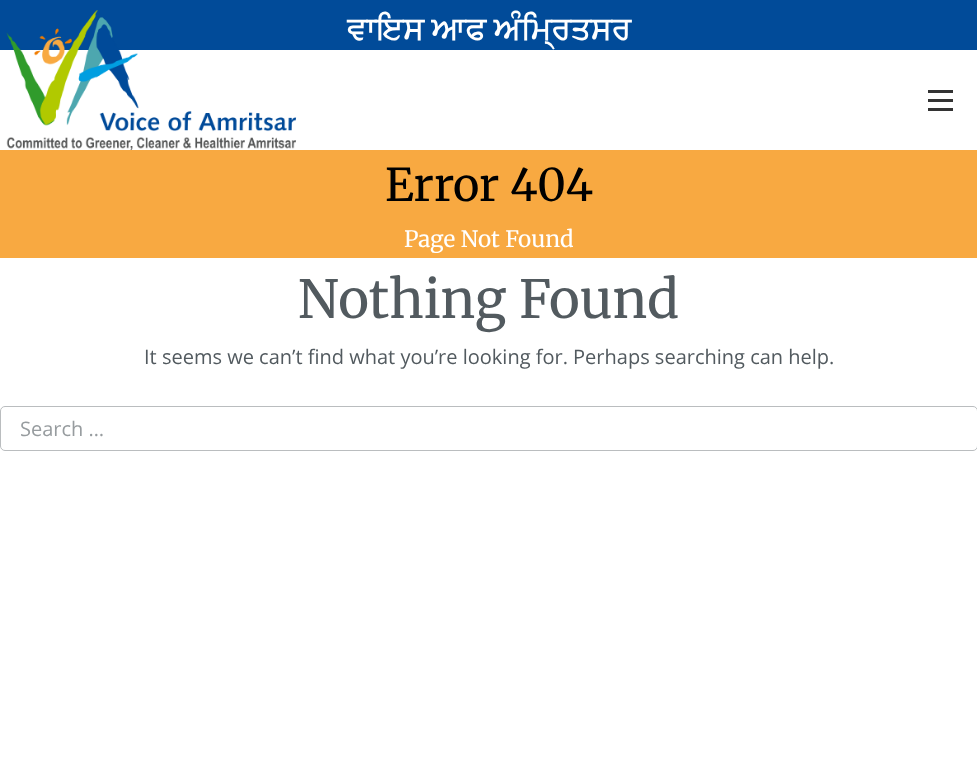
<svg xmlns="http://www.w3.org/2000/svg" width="977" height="768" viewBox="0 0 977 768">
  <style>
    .t1 { font: bold 31.25px FreeSans; fill: #fff; }
    .t2 { font: 45px Merriweather; fill: #000; }
    .t3 { font: 22.5px Merriweather; fill: #fff; }
    .t4 { font: 52.5px Merriweather; fill: #525a5f; }
    .t5 { font: 20px Open Sans; fill: #525a5f; }
    .t6 { font: 20px Open Sans; fill: #979c9f; }
  </style>
  <rect width="100%" height="100%" fill="#fff"/>
  <rect x="0" y="0" width="977" height="50" fill="#014b99"/>
  <image x="6" y="10" width="291" height="140" href="images/1.png"/>
  <rect x="928" y="90" width="25" height="3" fill="#333"/>
  <rect x="928" y="108" width="25" height="3" fill="#333"/>
  <rect x="928" y="99" width="25" height="3" fill="#333"/>
  <text x="347" y="39" class="t1">ਵਾਇਸ ਆਫ ਅੰਮ੍ਰਿਤਸਰ</text>
  <rect x="0" y="150" width="977" height="108" fill="#f8a941"/>
  <text x="385" y="201" class="t2">Error 404</text>
  <text x="404" y="247" class="t3">Page Not Found</text>
  <text x="298" y="318" class="t4">Nothing Found</text>
  <text x="144" y="364" class="t5">It seems we can’t find what you’re looking for. Perhaps searching can help.</text>
  <rect x="0.5" y="406.5" width="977" height="44" rx="4.5" fill="none" stroke="#babdbf"/>
  <text x="20" y="436" class="t6">Search …</text>
</svg>
